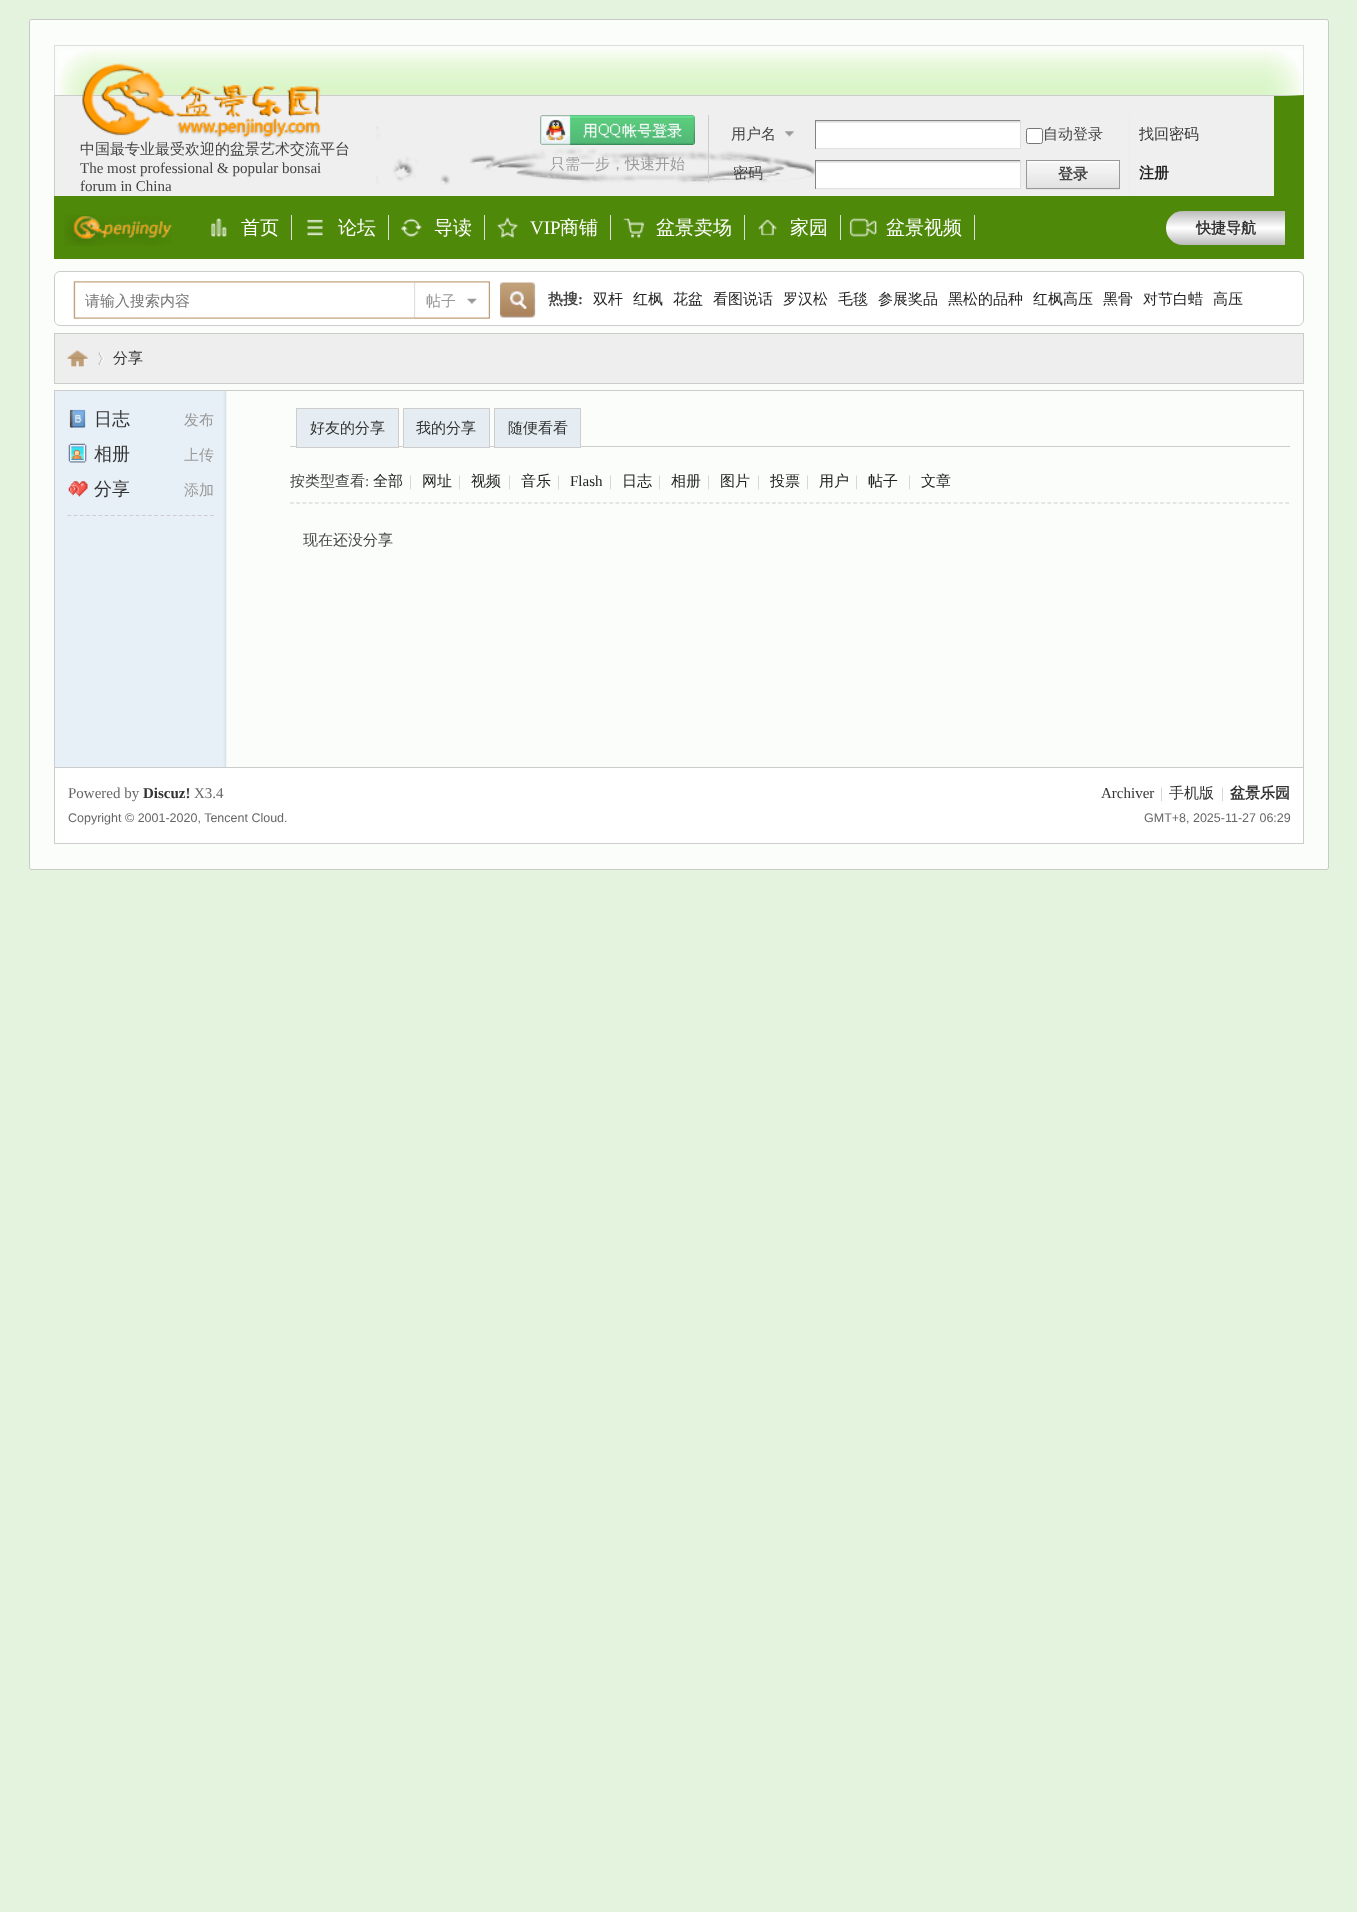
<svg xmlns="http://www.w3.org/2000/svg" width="1357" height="1912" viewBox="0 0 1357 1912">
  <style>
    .t1 { font: 500 15px WenQuanYi Zen Hei; fill: #444; }
    .t2 { font: 15px Liberation Serif; fill: #444; }
    .t3 { font: 500 15px WenQuanYi Zen Hei; fill: #999; }
    .t4 { font: 500 15px WenQuanYi Zen Hei; fill: #333; }
    .t5 { font: bold 15px WenQuanYi Zen Hei; fill: #444; }
    .t6 { font: bold 15px WenQuanYi Zen Hei; fill: #222; }
    .t7 { font: 500 19px WenQuanYi Zen Hei; fill: #fff; }
    .t8 { font: 19px Liberation Serif; fill: #fff; }
    .t9 { font: bold 15px WenQuanYi Zen Hei; fill: #333; }
    .t10 { font: 500 15px WenQuanYi Zen Hei; fill: #757575; }
    .t11 { font: bold 15px Liberation Serif; fill: #444; }
    .t12 { font: 500 15px WenQuanYi Zen Hei; fill: #222; }
    .t13 { font: 500 18px WenQuanYi Zen Hei; fill: #333; }
    .t14 { font: 15px Liberation Serif; fill: #ccc; }
    .t15 { font: 15px Liberation Serif; fill: #222; }
    .t16 { font: 15px Liberation Serif; fill: #666; }
    .t17 { font: bold 15px Liberation Serif; fill: #333; }
    .t18 { font: 12.5px Liberation Sans; fill: #666; }
    .t19 { font: 15px Liberation Serif; fill: #333; }
  </style>
  <defs>
    <linearGradient id="g1" gradientUnits="userSpaceOnUse" x1="1226" y1="211" x2="1226" y2="245"><stop offset="0" stop-color="#bbb"/><stop offset="0.5" stop-color="#fff"/><stop offset="1" stop-color="#bbb"/></linearGradient>
  </defs>
  <rect width="100%" height="100%" fill="#e4f3dd"/>
  <rect x="29" y="19" width="1300" height="851" rx="2.5" fill="#fbfdfa"/>
  <rect x="29.5" y="19.5" width="1299" height="850" rx="2" fill="none" stroke="#00000033"/>
  <image x="59" y="50" width="1243" height="45" href="images/1.png"/>
  <rect x="54" y="45" width="1250" height="1" fill="#ddd"/>
  <rect x="1303" y="45" width="1" height="50" fill="#ddd"/>
  <rect x="54" y="45" width="1" height="50" fill="#ddd"/>
  <rect x="55" y="96" width="1219" height="100" fill="#efefef"/>
  <image x="376" y="126" width="439" height="59" href="images/2.png"/>
  <path d="M54 95H1304L1285 96H55Z" fill="#ccc"/>
  <path d="M1304 95V196H1285V96Z" fill="#4f8909"/>
  <rect x="54" y="95" width="1" height="101" fill="#ccc"/>
  <image x="82" y="63" width="239" height="76" href="images/3.png"/>
  <text x="80" y="154" class="t1">中国最专业最受欢迎的盆景艺术交流平台</text>
  <text x="80" y="173" class="t2">The most professional &amp; popular bonsai</text>
  <text x="80" y="191" class="t2">forum in China</text>
  <rect x="1274" y="96" width="11" height="100" fill="#4f8909"/>
  <rect x="708" y="115" width="1" height="68" fill="#cdcdcd"/>
  <image x="540" y="115" width="155" height="30" href="images/4.png"/>
  <text x="550" y="169" class="t3">只需一步，快速开始</text>
  <image x="785" y="131" width="9" height="6" href="images/5.png"/>
  <text x="731" y="139" class="t1">用户名</text>
  <rect x="816" y="121" width="204" height="27" fill="#fff"/>
  <image x="816" y="121" width="206" height="2" href="images/6.png"/>
  <rect x="815" y="120" width="206" height="1" fill="#848484"/>
  <rect x="1020" y="120" width="1" height="29" fill="#e0e0e0"/>
  <rect x="815" y="148" width="206" height="1" fill="#e0e0e0"/>
  <rect x="815" y="120" width="1" height="29" fill="#848484"/>
  <rect x="1026.5" y="128.5" width="16" height="15" rx="2" fill="#fff" stroke="#767676"/>
  <text x="1043" y="139" class="t1">自动登录</text>
  <text x="1139" y="139" class="t4">找回密码</text>
  <text x="733" y="178" class="t1">密码</text>
  <rect x="816" y="161" width="204" height="27" fill="#fff"/>
  <image x="816" y="161" width="206" height="2" href="images/6.png"/>
  <rect x="815" y="160" width="206" height="1" fill="#848484"/>
  <rect x="1020" y="160" width="1" height="29" fill="#e0e0e0"/>
  <rect x="815" y="188" width="206" height="1" fill="#e0e0e0"/>
  <rect x="815" y="160" width="1" height="29" fill="#848484"/>
  <rect x="1129" y="115" width="1" height="80" fill="#e5edf2"/>
  <path d="M1026 161V190H1120V189H1026Z" fill="#e5e5e5"/>
  <image x="1027" y="161" width="92" height="27" href="images/7.png"/>
  <rect x="1026.5" y="160.5" width="93" height="28" fill="none" stroke="#999"/>
  <text x="1058" y="179" class="t5">登录</text>
  <text x="1139" y="178" class="t6">注册</text>
  <rect x="54" y="196" width="1250" height="63" fill="#4f8909"/>
  <image x="64" y="215" width="108" height="31" href="images/8.png"/>
  <image x="211" y="218" width="16" height="19" href="images/9.png"/>
  <rect x="291" y="215" width="1" height="25" fill="#ddd"/>
  <text x="241" y="234" class="t7">首页</text>
  <image x="307" y="219" width="16" height="17" href="images/10.png"/>
  <rect x="388" y="215" width="1" height="25" fill="#ddd"/>
  <text x="338" y="234" class="t7">论坛</text>
  <image x="401" y="218" width="21" height="19" href="images/11.png"/>
  <rect x="484" y="215" width="1" height="25" fill="#ddd"/>
  <text x="434" y="234" class="t7">导读</text>
  <image x="497" y="217" width="21" height="21" href="images/12.png"/>
  <rect x="610" y="215" width="1" height="25" fill="#ddd"/>
  <text x="530" y="234" class="t8">VIP</text>
  <text x="560" y="234" class="t7">商铺</text>
  <image x="623" y="218" width="21" height="20" href="images/13.png"/>
  <rect x="744" y="215" width="1" height="25" fill="#ddd"/>
  <text x="656" y="234" class="t7">盆景卖场</text>
  <image x="758" y="219" width="19" height="17" href="images/14.png"/>
  <rect x="840" y="215" width="1" height="25" fill="#ddd"/>
  <text x="790" y="234" class="t7">家园</text>
  <image x="849" y="218" width="28" height="19" href="images/15.png"/>
  <rect x="974" y="215" width="1" height="25" fill="#ddd"/>
  <text x="886" y="234" class="t7">盆景视频</text>
  <path d="M1183 211H1285V245H1183C1173.5 245 1166 237.5 1166 228C1166 218.5 1173.5 211 1183 211Z" fill="url(#g1)"/>
  <text x="1196" y="233" class="t9">快捷导航</text>
  <rect x="54.5" y="271.5" width="1249" height="54" rx="5.5" fill="#fff" stroke="#ccc"/>
  <image x="73" y="281" width="9" height="38" href="images/16.png"/>
  <image x="81" y="281" width="333" height="38" href="images/17.png"/>
  <image x="413" y="281" width="77" height="38" href="images/18.png"/>
  <rect x="413" y="288" width="1" height="27" fill="#fff"/>
  <text x="85" y="306" class="t10">请输入搜索内容</text>
  <text x="426" y="306" class="t3">帖子</text>
  <image x="500" y="282" width="36" height="36" href="images/19.png"/>
  <text x="548" y="304" class="t5">热搜</text>
  <text x="578" y="304" class="t11">:</text>
  <text x="593" y="304" class="t12">双杆</text>
  <text x="633" y="304" class="t12">红枫</text>
  <text x="673" y="304" class="t12">花盆</text>
  <text x="713" y="304" class="t12">看图说话</text>
  <text x="783" y="304" class="t12">罗汉松</text>
  <text x="838" y="304" class="t12">毛毯</text>
  <text x="878" y="304" class="t12">参展奖品</text>
  <text x="948" y="304" class="t12">黑松的品种</text>
  <text x="1033" y="304" class="t12">红枫高压</text>
  <text x="1103" y="304" class="t12">黑骨</text>
  <text x="1143" y="304" class="t12">对节白蜡</text>
  <text x="1213" y="304" class="t12">高压</text>
  <rect x="54.5" y="333.5" width="1249" height="50" fill="#eee" stroke="#ccc"/>
  <image x="67" y="350" width="21" height="17" href="images/20.png"/>
  <image x="98" y="352" width="6" height="13" href="images/21.png"/>
  <text x="113" y="363" class="t4">分享</text>
  <image x="55" y="391" width="172" height="376" href="images/22.png"/>
  <rect x="54.5" y="390.5" width="1249" height="377" fill="none" stroke="#ccc"/>
  <image x="69" y="409" width="17" height="19" href="images/23.png"/>
  <text x="94" y="425" class="t13">日志</text>
  <text x="184" y="425" class="t3">发布</text>
  <image x="68" y="443" width="19" height="20" href="images/24.png"/>
  <text x="94" y="460" class="t13">相册</text>
  <text x="184" y="460" class="t3">上传</text>
  <image x="68" y="481" width="20" height="16" href="images/25.png"/>
  <text x="94" y="495" class="t13">分享</text>
  <text x="184" y="495" class="t3">添加</text>
  <path d="M67.5 515.5H214" fill="none" stroke="#cdcdcd" stroke-width="1.2" stroke-dasharray="3.75 2.45"/>
  <rect x="290" y="446" width="1000" height="1" fill="#cdcdcd"/>
  <rect x="296.5" y="408.5" width="102" height="39" fill="#e5edf2" stroke="#cdcdcd"/>
  <text x="310" y="433" class="t4">好友的分享</text>
  <rect x="403.5" y="408.5" width="86" height="39" fill="#e5edf2" stroke="#cdcdcd"/>
  <text x="416" y="433" class="t4">我的分享</text>
  <rect x="494.5" y="408.5" width="86" height="39" fill="#e5edf2" stroke="#cdcdcd"/>
  <text x="508" y="433" class="t4">随便看看</text>
  <path d="M290 503H1290" fill="none" stroke="#cdcdcd" stroke-width="1.2" stroke-dasharray="3.75 2.51"/>
  <text x="290" y="486" class="t1">按类型查看</text>
  <text x="365" y="486" class="t2">:</text>
  <text x="373" y="486" class="t12">全部</text>
  <text x="409" y="486" class="t14">|</text>
  <text x="422" y="486" class="t12">网址</text>
  <text x="458" y="486" class="t14">|</text>
  <text x="471" y="486" class="t12">视频</text>
  <text x="508" y="486" class="t14">|</text>
  <text x="521" y="486" class="t12">音乐</text>
  <text x="557" y="486" class="t14">|</text>
  <text x="570" y="486" class="t15">Flash</text>
  <text x="609" y="486" class="t14">|</text>
  <text x="622" y="486" class="t12">日志</text>
  <text x="658" y="486" class="t14">|</text>
  <text x="671" y="486" class="t12">相册</text>
  <text x="707" y="486" class="t14">|</text>
  <text x="720" y="486" class="t12">图片</text>
  <text x="757" y="486" class="t14">|</text>
  <text x="770" y="486" class="t12">投票</text>
  <text x="806" y="486" class="t14">|</text>
  <text x="819" y="486" class="t12">用户</text>
  <text x="855" y="486" class="t14">|</text>
  <text x="868" y="486" class="t12">帖子</text>
  <text x="908" y="486" class="t14">|</text>
  <text x="921" y="486" class="t12">文章</text>
  <text x="303" y="545" class="t1">现在还没分享</text>
  <rect x="55" y="768" width="1248" height="75" fill="#fff"/>
  <rect x="1303" y="768" width="1" height="76" fill="#cdcdcd"/>
  <rect x="54" y="843" width="1250" height="1" fill="#cdcdcd"/>
  <rect x="54" y="768" width="1" height="76" fill="#cdcdcd"/>
  <text x="68" y="798" class="t16">Powered by</text>
  <text x="143" y="798" class="t17">Discuz!</text>
  <text x="194" y="798" class="t16">X3.4</text>
  <text x="68" y="822" class="t18">Copyright © 2001-2020, Tencent Cloud.</text>
  <text x="1101" y="798" class="t19">Archiver</text>
  <text x="1160" y="798" class="t14">|</text>
  <text x="1169" y="798" class="t4">手机版</text>
  <text x="1221" y="798" class="t14">|</text>
  <text x="1230" y="798" class="t9">盆景乐园</text>
  <text x="1144" y="822" class="t18">GMT+8, 2025-11-27 06:29</text>
</svg>
